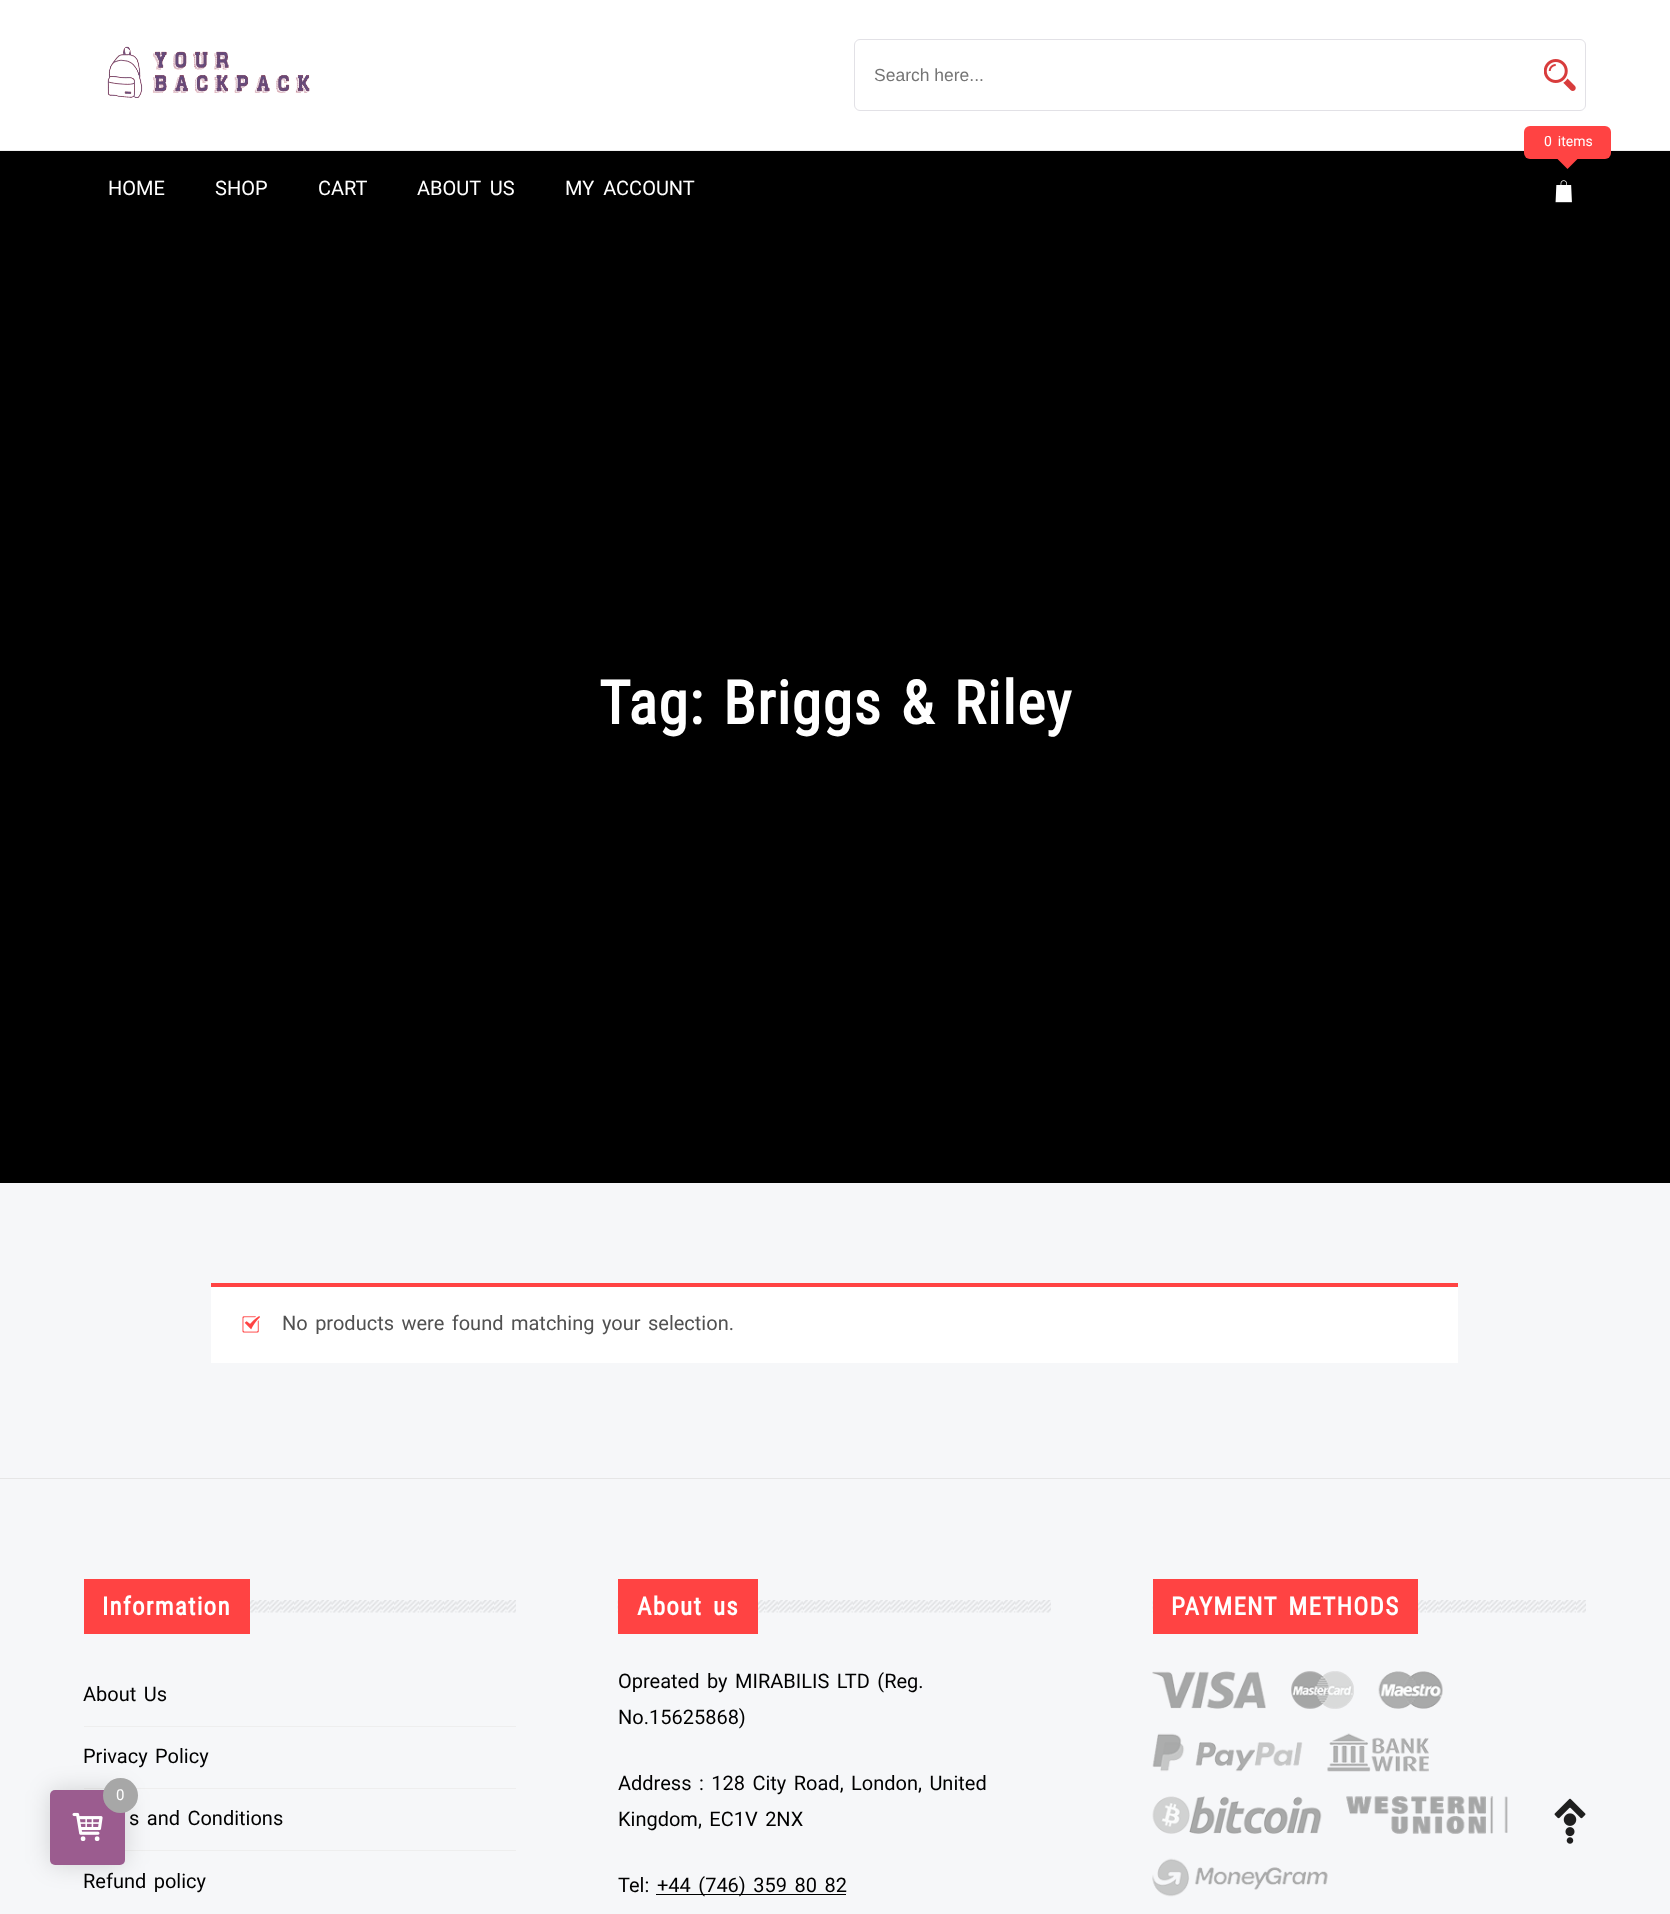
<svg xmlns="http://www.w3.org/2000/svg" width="1670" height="1914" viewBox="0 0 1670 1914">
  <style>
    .t1 { font: 17.5px Liberation Sans; fill: #757575; }
    .t2 { font: 14px Roboto; fill: #fff; }
    .t3 { font: 20px Roboto; fill: #fff; }
    .t4 { font: bold 60px Roboto Condensed; letter-spacing: 1.25px; fill: #fff; }
    .t5 { font: 20px Roboto; fill: #515151; }
    .t6 { font: bold 25px Roboto Condensed; letter-spacing: 1.25px; fill: #fff; }
    .t7 { font: 20px Roboto; fill: #000; }
    .t8 { font: 15px Roboto; fill: #fff; }
  </style>
  <rect width="100%" height="100%" fill="#f6f7f9"/>
  <rect x="0" y="0" width="1670" height="150" fill="#fff"/>
  <image x="107" y="46" width="203" height="52" href="images/1.png"/>
  <rect x="854.5" y="39.5" width="731" height="71" rx="5.5" fill="none" stroke="#e2e1e6"/>
  <text x="874" y="81" class="t1">Search here...</text>
  <image x="1544" y="59" width="32" height="32" href="images/2.png"/>
  <rect x="0" y="151" width="1670" height="1032" fill="#000"/>
  <rect x="0" y="150" width="1670" height="1" fill="#eee"/>
  <rect x="1524" y="126" width="87" height="33" rx="6" fill="#ff4343"/>
  <text x="1544" y="146" word-spacing="2.5" class="t2">0 items</text>
  <path d="M1557.5 159H1577.5L1567.5 169Z" fill="#ff4343"/>
  <image x="1555" y="180" width="17" height="23" href="images/3.png"/>
  <text x="108" y="195" class="t3">HOME</text>
  <text x="215" y="195" class="t3">SHOP</text>
  <text x="318" y="195" class="t3">CART</text>
  <text x="417" y="195" word-spacing="4" class="t3">ABOUT US</text>
  <text x="565" y="195" word-spacing="4" class="t3">MY ACCOUNT</text>
  <text x="599" y="724" class="t4">Tag:</text>
  <text x="723" y="724" word-spacing="4" class="t4">Briggs &amp; Riley</text>
  <rect x="211" y="1287" width="1247" height="76" fill="#fff"/>
  <rect x="211" y="1283" width="1247" height="4" fill="#ff4343"/>
  <image x="242" y="1316" width="18" height="17" href="images/4.png"/>
  <text x="282" y="1330" word-spacing="2.5" class="t5">No products were found matching your selection.</text>
  <rect x="0" y="1478" width="1670" height="1" fill="#e6e6e6"/>
  <image x="250" y="1600" width="266" height="13" href="images/5.png"/>
  <rect x="84" y="1579" width="166" height="55" fill="#ff4343"/>
  <text x="102" y="1615" class="t6">Information</text>
  <rect x="84" y="1726" width="432" height="1" fill="#eee"/>
  <text x="83" y="1701" word-spacing="2.5" class="t7">About Us</text>
  <rect x="84" y="1788" width="432" height="1" fill="#eee"/>
  <text x="83" y="1763" word-spacing="2.5" class="t7">Privacy Policy</text>
  <rect x="125" y="1850" width="391" height="1" fill="#eee"/>
  <text x="129" y="1825" word-spacing="2.5" class="t7">s and Conditions</text>
  <text x="83" y="1888" word-spacing="2.5" class="t7">Refund policy</text>
  <image x="617" y="1600" width="434" height="13" href="images/6.png"/>
  <rect x="618" y="1579" width="140" height="55" fill="#ff4343"/>
  <text x="637" y="1615" word-spacing="4" class="t6">About us</text>
  <text x="618" y="1688" word-spacing="2.5" class="t7">Opreated by MIRABILIS LTD (Reg.</text>
  <text x="618" y="1724" class="t7">No.15625868)</text>
  <text x="618" y="1790" word-spacing="2.5" class="t7">Address : 128 City Road, London, United</text>
  <text x="618" y="1826" word-spacing="2.5" class="t7">Kingdom, EC1V 2NX</text>
  <text x="618" y="1892" class="t7">Tel:</text>
  <rect x="656" y="1894" width="190" height="1" fill="#000"/>
  <text x="657" y="1892" word-spacing="2.5" class="t7">+44 (746) 359 80 82</text>
  <image x="1152" y="1600" width="434" height="13" href="images/7.png"/>
  <rect x="1153" y="1579" width="265" height="55" fill="#ff4343"/>
  <text x="1171" y="1615" word-spacing="4" class="t6">PAYMENT METHODS</text>
  <image x="1152" y="1671" width="114" height="38" href="images/8.png"/>
  <image x="1291" y="1671" width="63" height="38" href="images/9.png"/>
  <image x="1378" y="1671" width="65" height="38" href="images/10.png"/>
  <image x="1152" y="1733" width="151" height="39" href="images/11.png"/>
  <image x="1327" y="1733" width="102" height="39" href="images/12.png"/>
  <image x="1152" y="1796" width="170" height="38" href="images/13.png"/>
  <image x="1346" y="1796" width="162" height="38" href="images/14.png"/>
  <image x="1152" y="1858" width="176" height="39" href="images/15.png"/>
  <image x="1554" y="1798" width="32" height="46" href="images/16.png"/>
  <rect x="50" y="1790" width="75" height="75" rx="5" fill="#00000026" filter="blur(12.5px)"/>
  <rect x="50" y="1790" width="75" height="75" rx="5" fill="#9b5c8f"/>
  <circle cx="120.5" cy="1795.5" r="17.5" fill="#a7a7a7"/>
  <text x="116" y="1800" class="t8">0</text>
  <image x="72" y="1812" width="31" height="29" href="images/17.png"/>
</svg>
